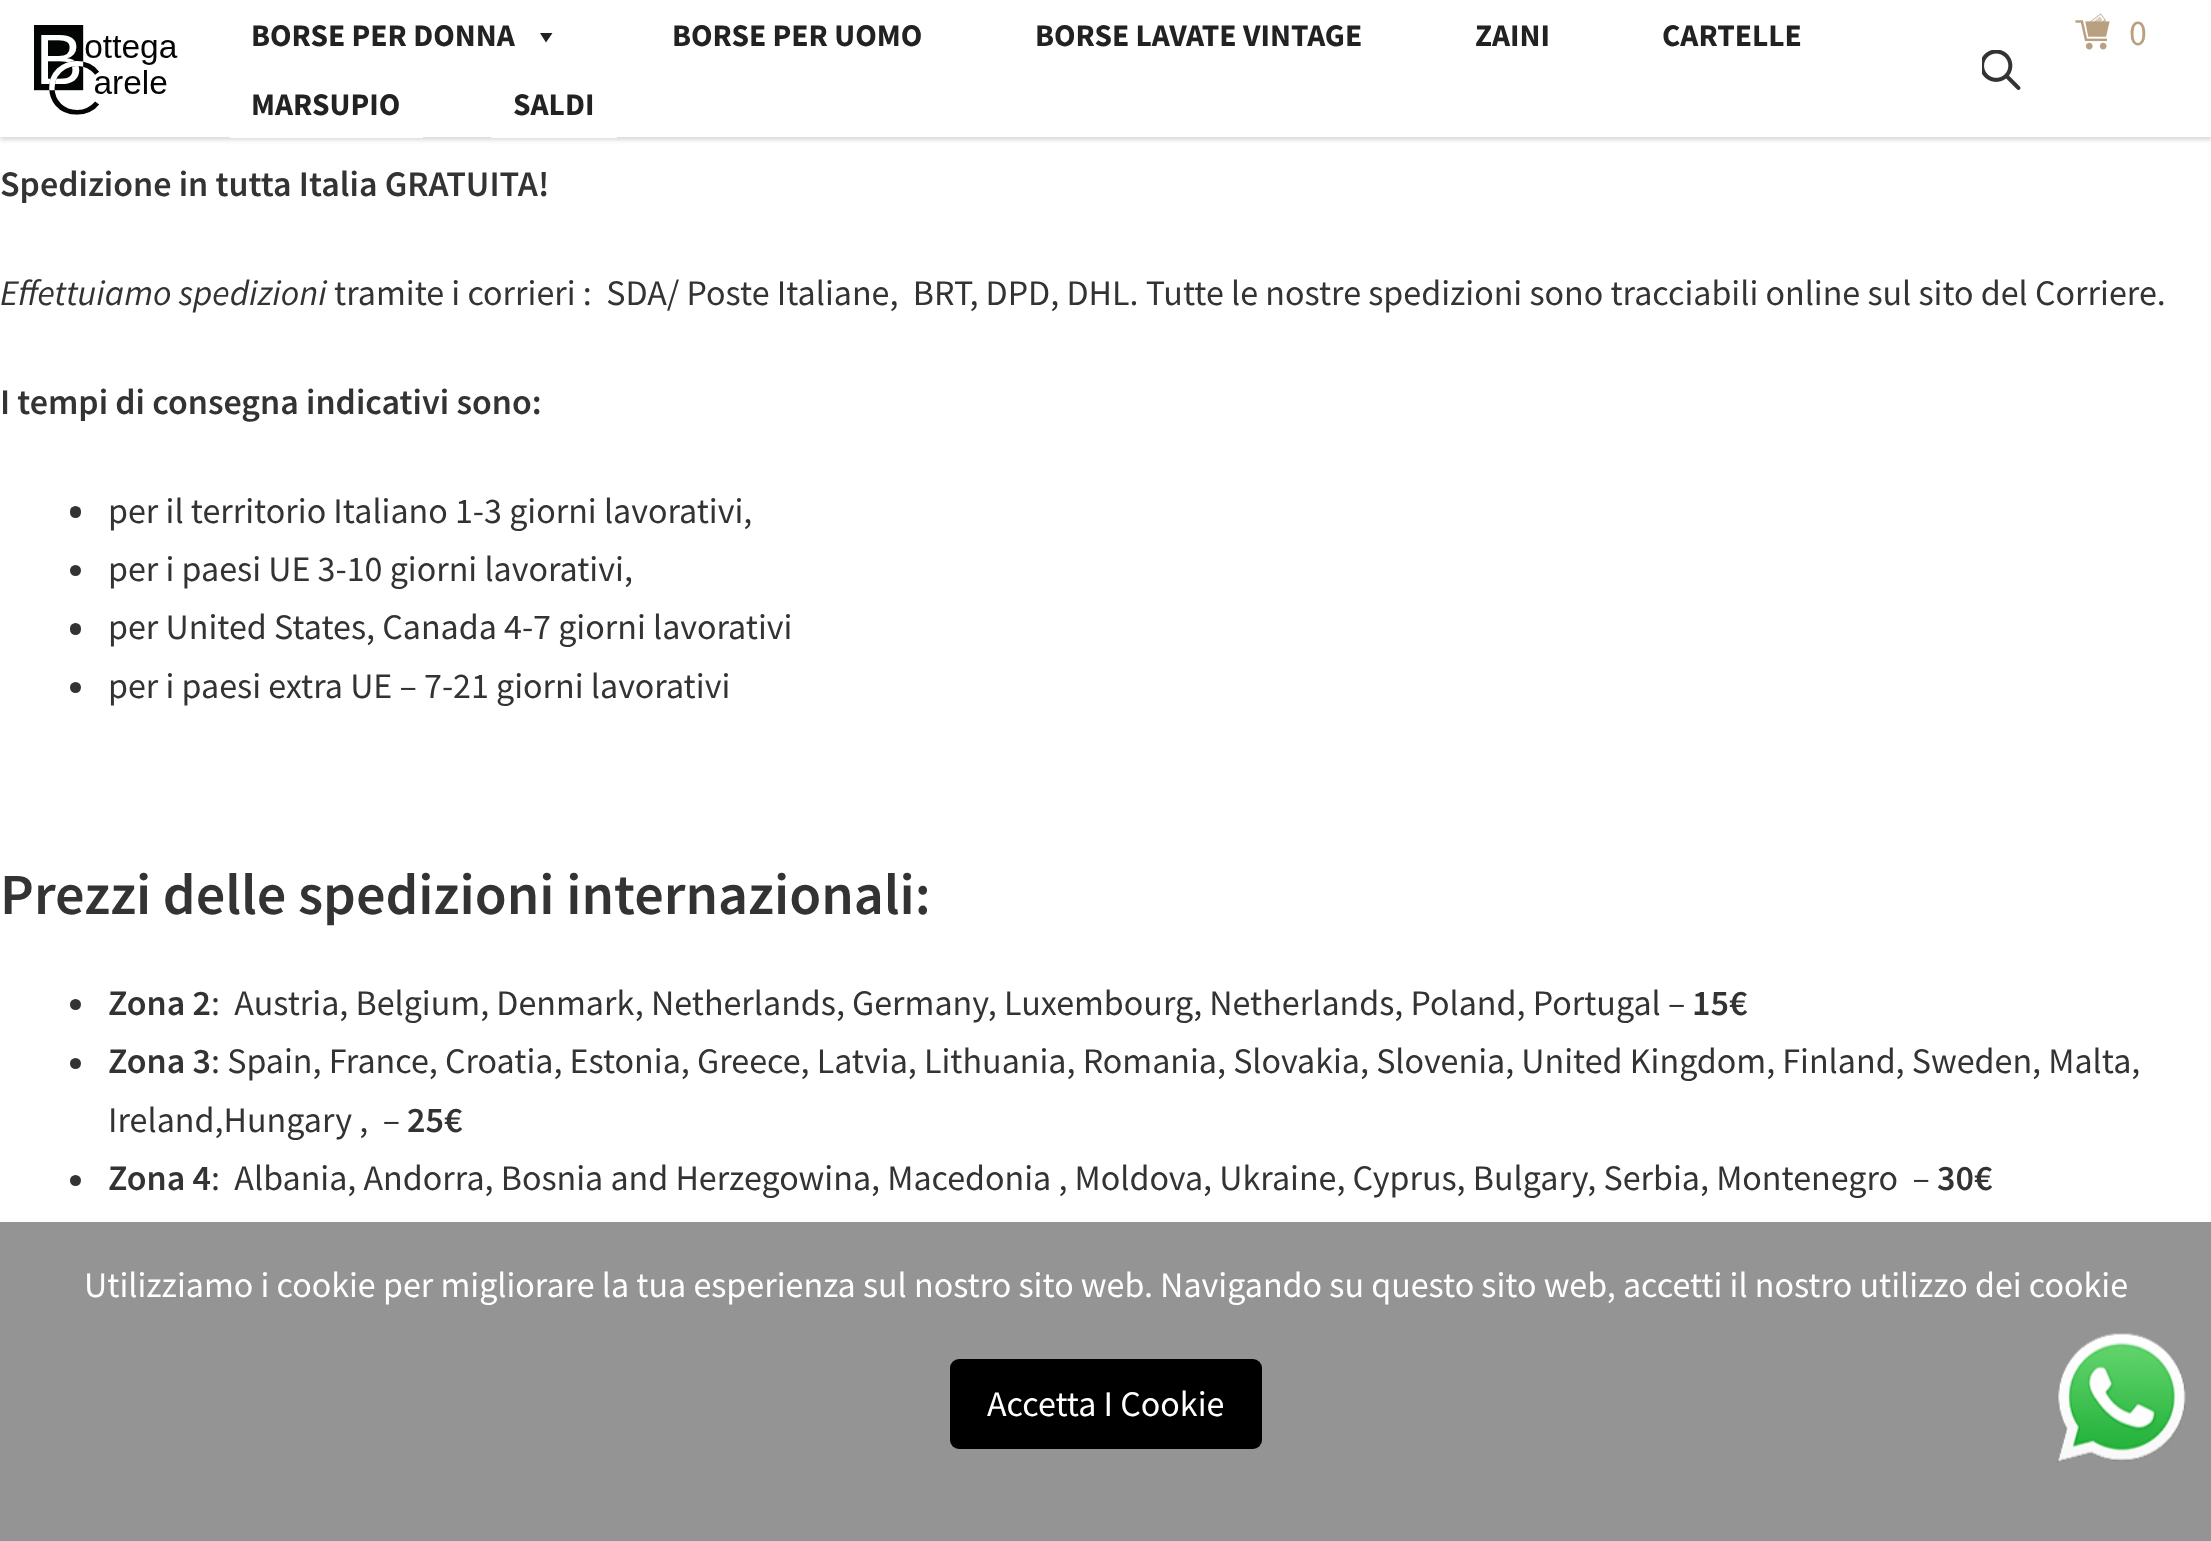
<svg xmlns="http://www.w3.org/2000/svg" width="2211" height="1541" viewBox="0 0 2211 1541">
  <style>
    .t1 { font: bold 31.5px Source Sans Pro; fill: #222; }
    .t2 { font: 36px Source Sans Pro; fill: #b9a080; }
    .t3 { font: 600 36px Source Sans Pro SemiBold; fill: #333; }
    .t4 { font: italic 36px Source Sans Pro; fill: #333; }
    .t5 { font: 36px Source Sans Pro; fill: #333; }
    .t6 { font: 600 58.25px Source Sans Pro SemiBold; fill: #333; }
    .t7 { font: 36px Source Sans Pro; fill: #fff; }
  </style>
  <rect width="100%" height="100%" fill="#fff"/>
  <rect x="0" y="2" width="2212" height="138" fill="#00000026" filter="blur(2px)"/>
  <rect x="0" y="0" width="2211" height="137" fill="#fff"/>
  <image x="34" y="25" width="144" height="90" href="images/1.png"/>
  <text x="251" y="46" class="t1">BORSE PER DONNA</text>
  <path d="M552.5 33L546 42.5L540 33Z" fill="#222"/>
  <text x="672" y="46" class="t1">BORSE PER UOMO</text>
  <text x="1035" y="46" class="t1">BORSE LAVATE VINTAGE</text>
  <text x="1475" y="46" class="t1">ZAINI</text>
  <text x="1662" y="46" class="t1">CARTELLE</text>
  <rect x="230" y="137" width="193" height="1" fill="#fff"/>
  <text x="251" y="115" class="t1">MARSUPIO</text>
  <rect x="491" y="137" width="126" height="1" fill="#fff"/>
  <text x="513" y="115" class="t1">SALDI</text>
  <image x="2075" y="13" width="35" height="37" href="images/2.png"/>
  <text x="2129" y="45" class="t2">0</text>
  <image x="1982" y="50" width="39" height="40" href="images/3.png"/>
  <text x="0" y="196" class="t3">Spedizione in tutta Italia GRATUITA!</text>
  <text x="0" y="305" class="t4">Effettuiamo spedizioni</text>
  <text x="334" y="305" class="t5" xml:space="preserve">tramite i corrieri :  SDA/ Poste Italiane,  BRT, DPD, DHL. Tutte le nostre spedizioni sono tracciabili online sul sito del Corriere.</text>
  <text x="0" y="414" class="t3">I tempi di consegna indicativi sono:</text>
  <rect x="70" y="506" width="11" height="12" rx="5.5" fill="#333"/>
  <text x="108" y="523" class="t5">per il territorio Italiano 1-3 giorni lavorativi,</text>
  <circle cx="75.5" cy="570.5" r="5.5" fill="#333"/>
  <text x="108" y="581" class="t5">per i paesi UE 3-10 giorni lavorativi,</text>
  <rect x="70" y="623" width="11" height="12" rx="5.5" fill="#333"/>
  <text x="108" y="639" class="t5">per United States, Canada 4-7 giorni lavorativi</text>
  <circle cx="75.5" cy="687.5" r="5.5" fill="#333"/>
  <text x="108" y="698" class="t5">per i paesi extra UE – 7-21 giorni lavorativi</text>
  <text x="0" y="914" class="t6">Prezzi delle spedizioni internazionali:</text>
  <circle cx="75.5" cy="1004.5" r="5.5" fill="#333"/>
  <text x="108" y="1015" class="t3">Zona 2</text>
  <text x="211" y="1015" class="t5" xml:space="preserve">:  Austria, Belgium, Denmark, Netherlands, Germany, Luxembourg, Netherlands, Poland, Portugal –</text>
  <text x="1692" y="1015" class="t3">15€</text>
  <circle cx="75.5" cy="1063.5" r="5.5" fill="#333"/>
  <text x="108" y="1073" class="t3">Zona 3</text>
  <text x="211" y="1073" class="t5">: Spain, France, Croatia, Estonia, Greece, Latvia, Lithuania, Romania, Slovakia, Slovenia, United Kingdom, Finland, Sweden, Malta,</text>
  <text x="108" y="1132" class="t5" xml:space="preserve">Ireland,Hungary ,  –</text>
  <text x="407" y="1132" class="t3">25€</text>
  <circle cx="75.5" cy="1180.5" r="5.5" fill="#333"/>
  <text x="108" y="1190" class="t3">Zona 4</text>
  <text x="211" y="1190" class="t5" xml:space="preserve">:  Albania, Andorra, Bosnia and Herzegowina, Macedonia , Moldova, Ukraine, Cyprus, Bulgary, Serbia, Montenegro  –</text>
  <text x="1937" y="1190" class="t3">30€</text>
  <rect x="0" y="1222" width="2211" height="319" fill="#949494"/>
  <text x="84" y="1297" class="t7">Utilizziamo i cookie per migliorare la tua esperienza sul nostro sito web. Navigando su questo sito web, accetti il nostro utilizzo dei cookie</text>
  <rect x="950" y="1359" width="312" height="90" rx="9" fill="#000"/>
  <text x="987" y="1416" class="t7">Accetta I Cookie</text>
  <image x="2057" y="1332" width="129" height="131" href="images/4.png"/>
</svg>
